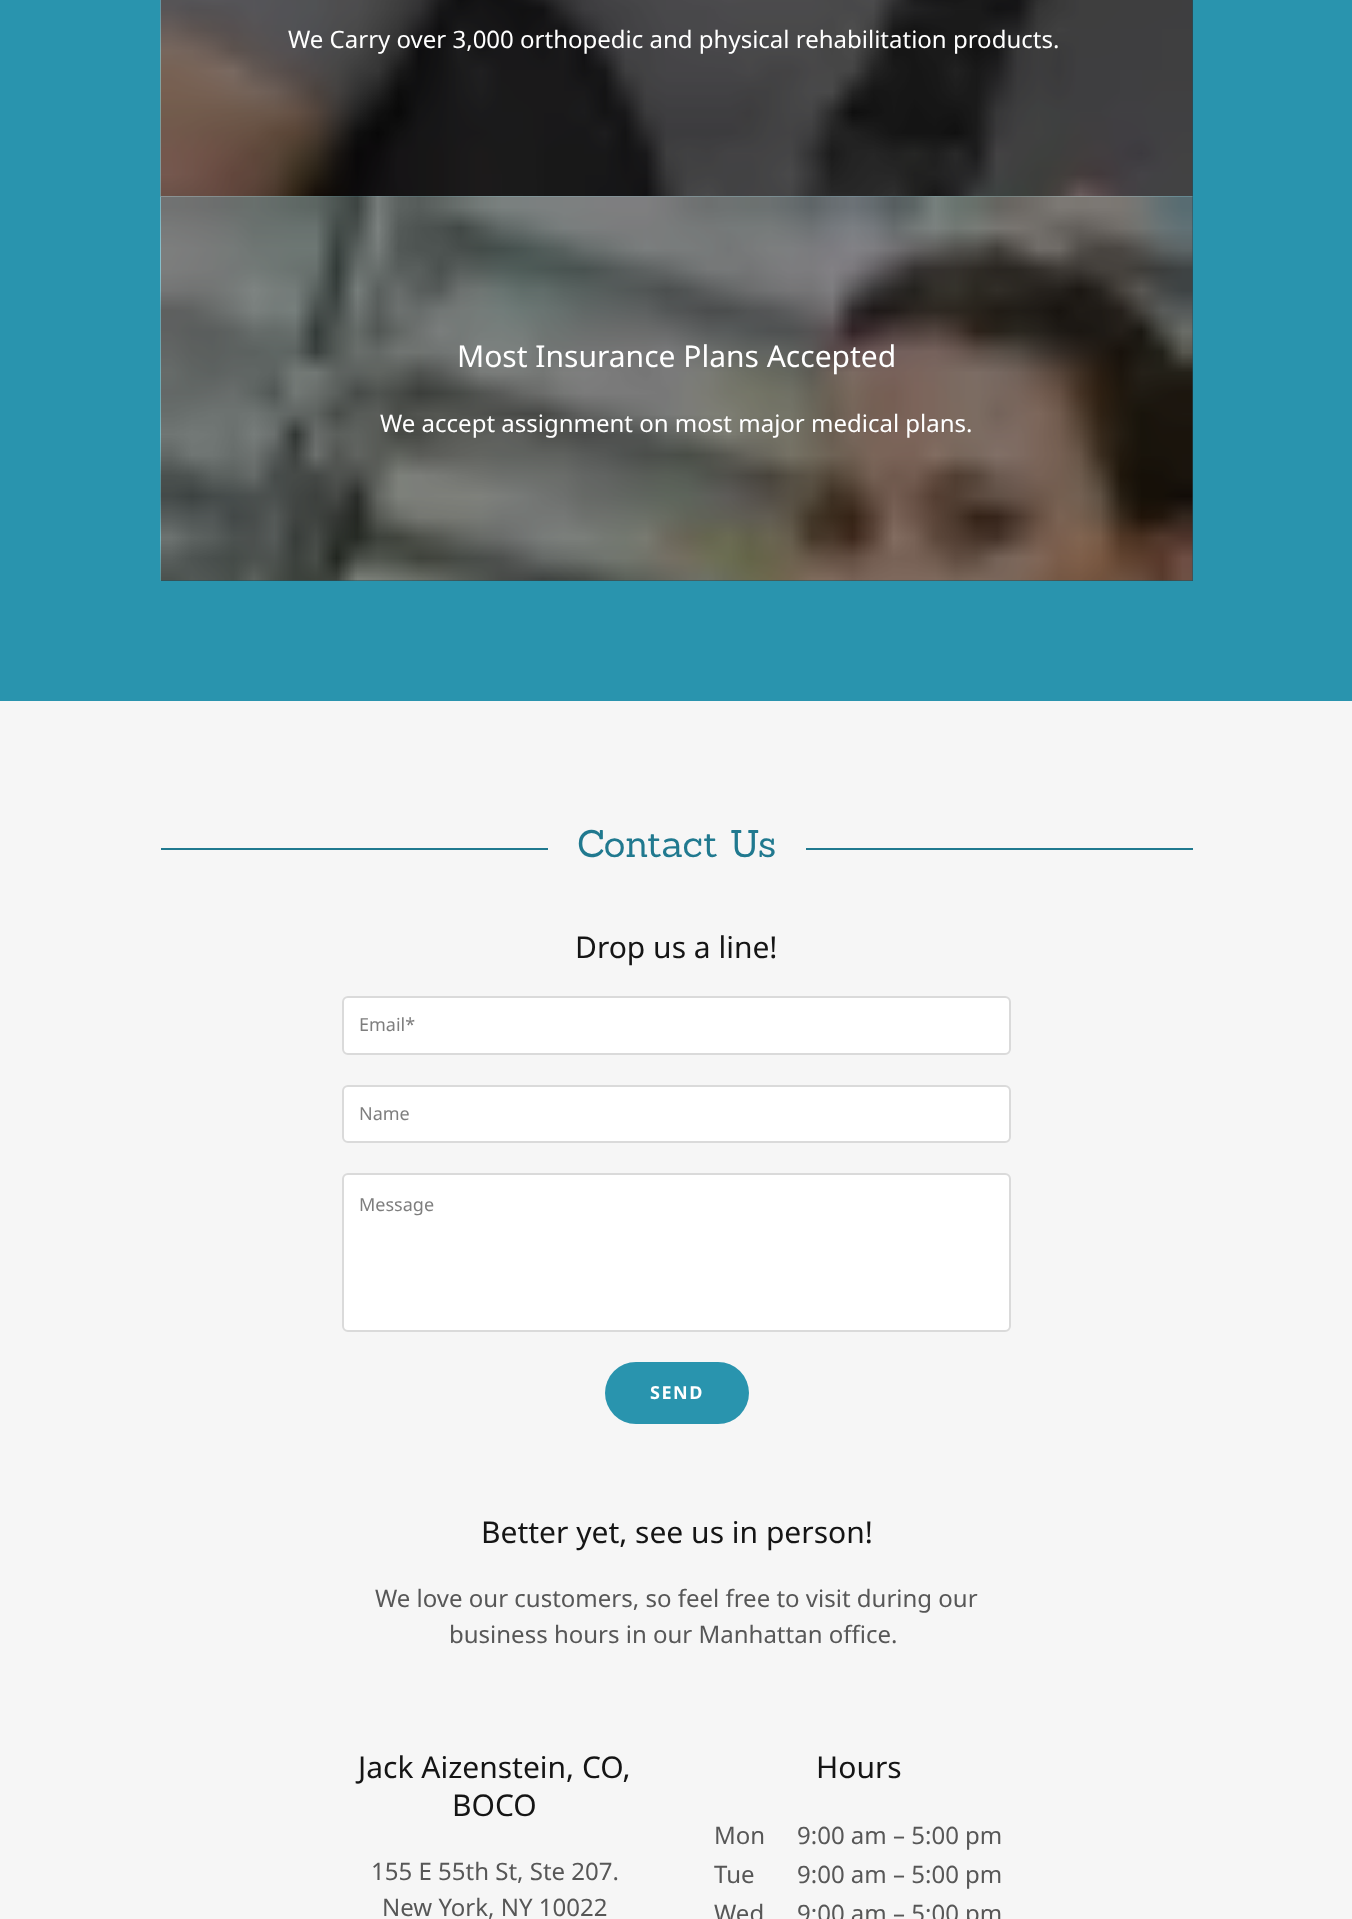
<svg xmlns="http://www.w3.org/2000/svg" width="1352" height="1919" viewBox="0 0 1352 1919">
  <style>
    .t1 { font: 24px Noto Sans; fill: #fff; }
    .t2 { font: 30px Noto Sans; fill: #fff; }
    .t3 { font: 37.5px Sanchez; fill: #20798f; }
    .t4 { font: 30px Noto Sans; fill: #151515; }
    .t5 { font: 18px Noto Sans; fill: #7e7e7e; }
    .t6 { font: bold 18px Noto Sans; letter-spacing: 1.5px; fill: #fff; }
    .t7 { font: 24px Noto Sans; fill: #575757; }
  </style>
  <rect width="100%" height="100%" fill="#2994ae"/>
  <rect x="161" y="0" width="1032" height="581" fill="#1d5360"/>
  <image x="160" y="0" width="1033" height="197" href="images/1.png"/>
  <text x="288" y="48" class="t1">We Carry over 3,000 orthopedic and physical rehabilitation products.</text>
  <image x="160" y="196" width="1033" height="385" href="images/2.png"/>
  <text x="457" y="367" class="t2">Most Insurance Plans Accepted</text>
  <text x="380" y="432" class="t1">We accept assignment on most major medical plans.</text>
  <rect x="0" y="701" width="1352" height="1218" fill="#f6f6f6"/>
  <rect x="161" y="848" width="387" height="2" fill="#20798f"/>
  <text x="577" y="857" class="t3">Contact Us</text>
  <rect x="806" y="848" width="387" height="2" fill="#20798f"/>
  <text x="575" y="958" class="t4">Drop us a line!</text>
  <rect x="343" y="997" width="667" height="57" rx="5" fill="#fff" stroke="#dadada" stroke-width="2"/>
  <text x="359" y="1031" class="t5">Email*</text>
  <rect x="343" y="1086" width="667" height="56" rx="5" fill="#fff" stroke="#dadada" stroke-width="2"/>
  <text x="359" y="1120" class="t5">Name</text>
  <rect x="343" y="1174" width="667" height="157" rx="5" fill="#fff" stroke="#dadada" stroke-width="2"/>
  <text x="359" y="1211" class="t5">Message</text>
  <rect x="605" y="1362" width="144" height="62" rx="31" fill="#2994ae"/>
  <text x="650" y="1399" class="t6">SEND</text>
  <text x="481" y="1543" class="t4">Better yet, see us in person!</text>
  <text x="375" y="1607" class="t7">We love our customers, so feel free to visit during our</text>
  <text x="449" y="1643" class="t7">business hours in our Manhattan office.</text>
  <text x="358" y="1778" class="t4">Jack Aizenstein, CO,</text>
  <text x="452" y="1816" class="t4">BOCO</text>
  <text x="371" y="1880" class="t7">155 E 55th St, Ste 207.</text>
  <text x="382" y="1916" class="t7">New York, NY 10022</text>
  <text x="816" y="1778" class="t4">Hours</text>
  <text x="714" y="1844" class="t7">Mon</text>
  <text x="797" y="1844" class="t7">9:00 am – 5:00 pm</text>
  <text x="714" y="1883" class="t7">Tue</text>
  <text x="797" y="1883" class="t7">9:00 am – 5:00 pm</text>
  <text x="714" y="1922" class="t7">Wed</text>
  <text x="797" y="1922" class="t7">9:00 am – 5:00 pm</text>
</svg>
